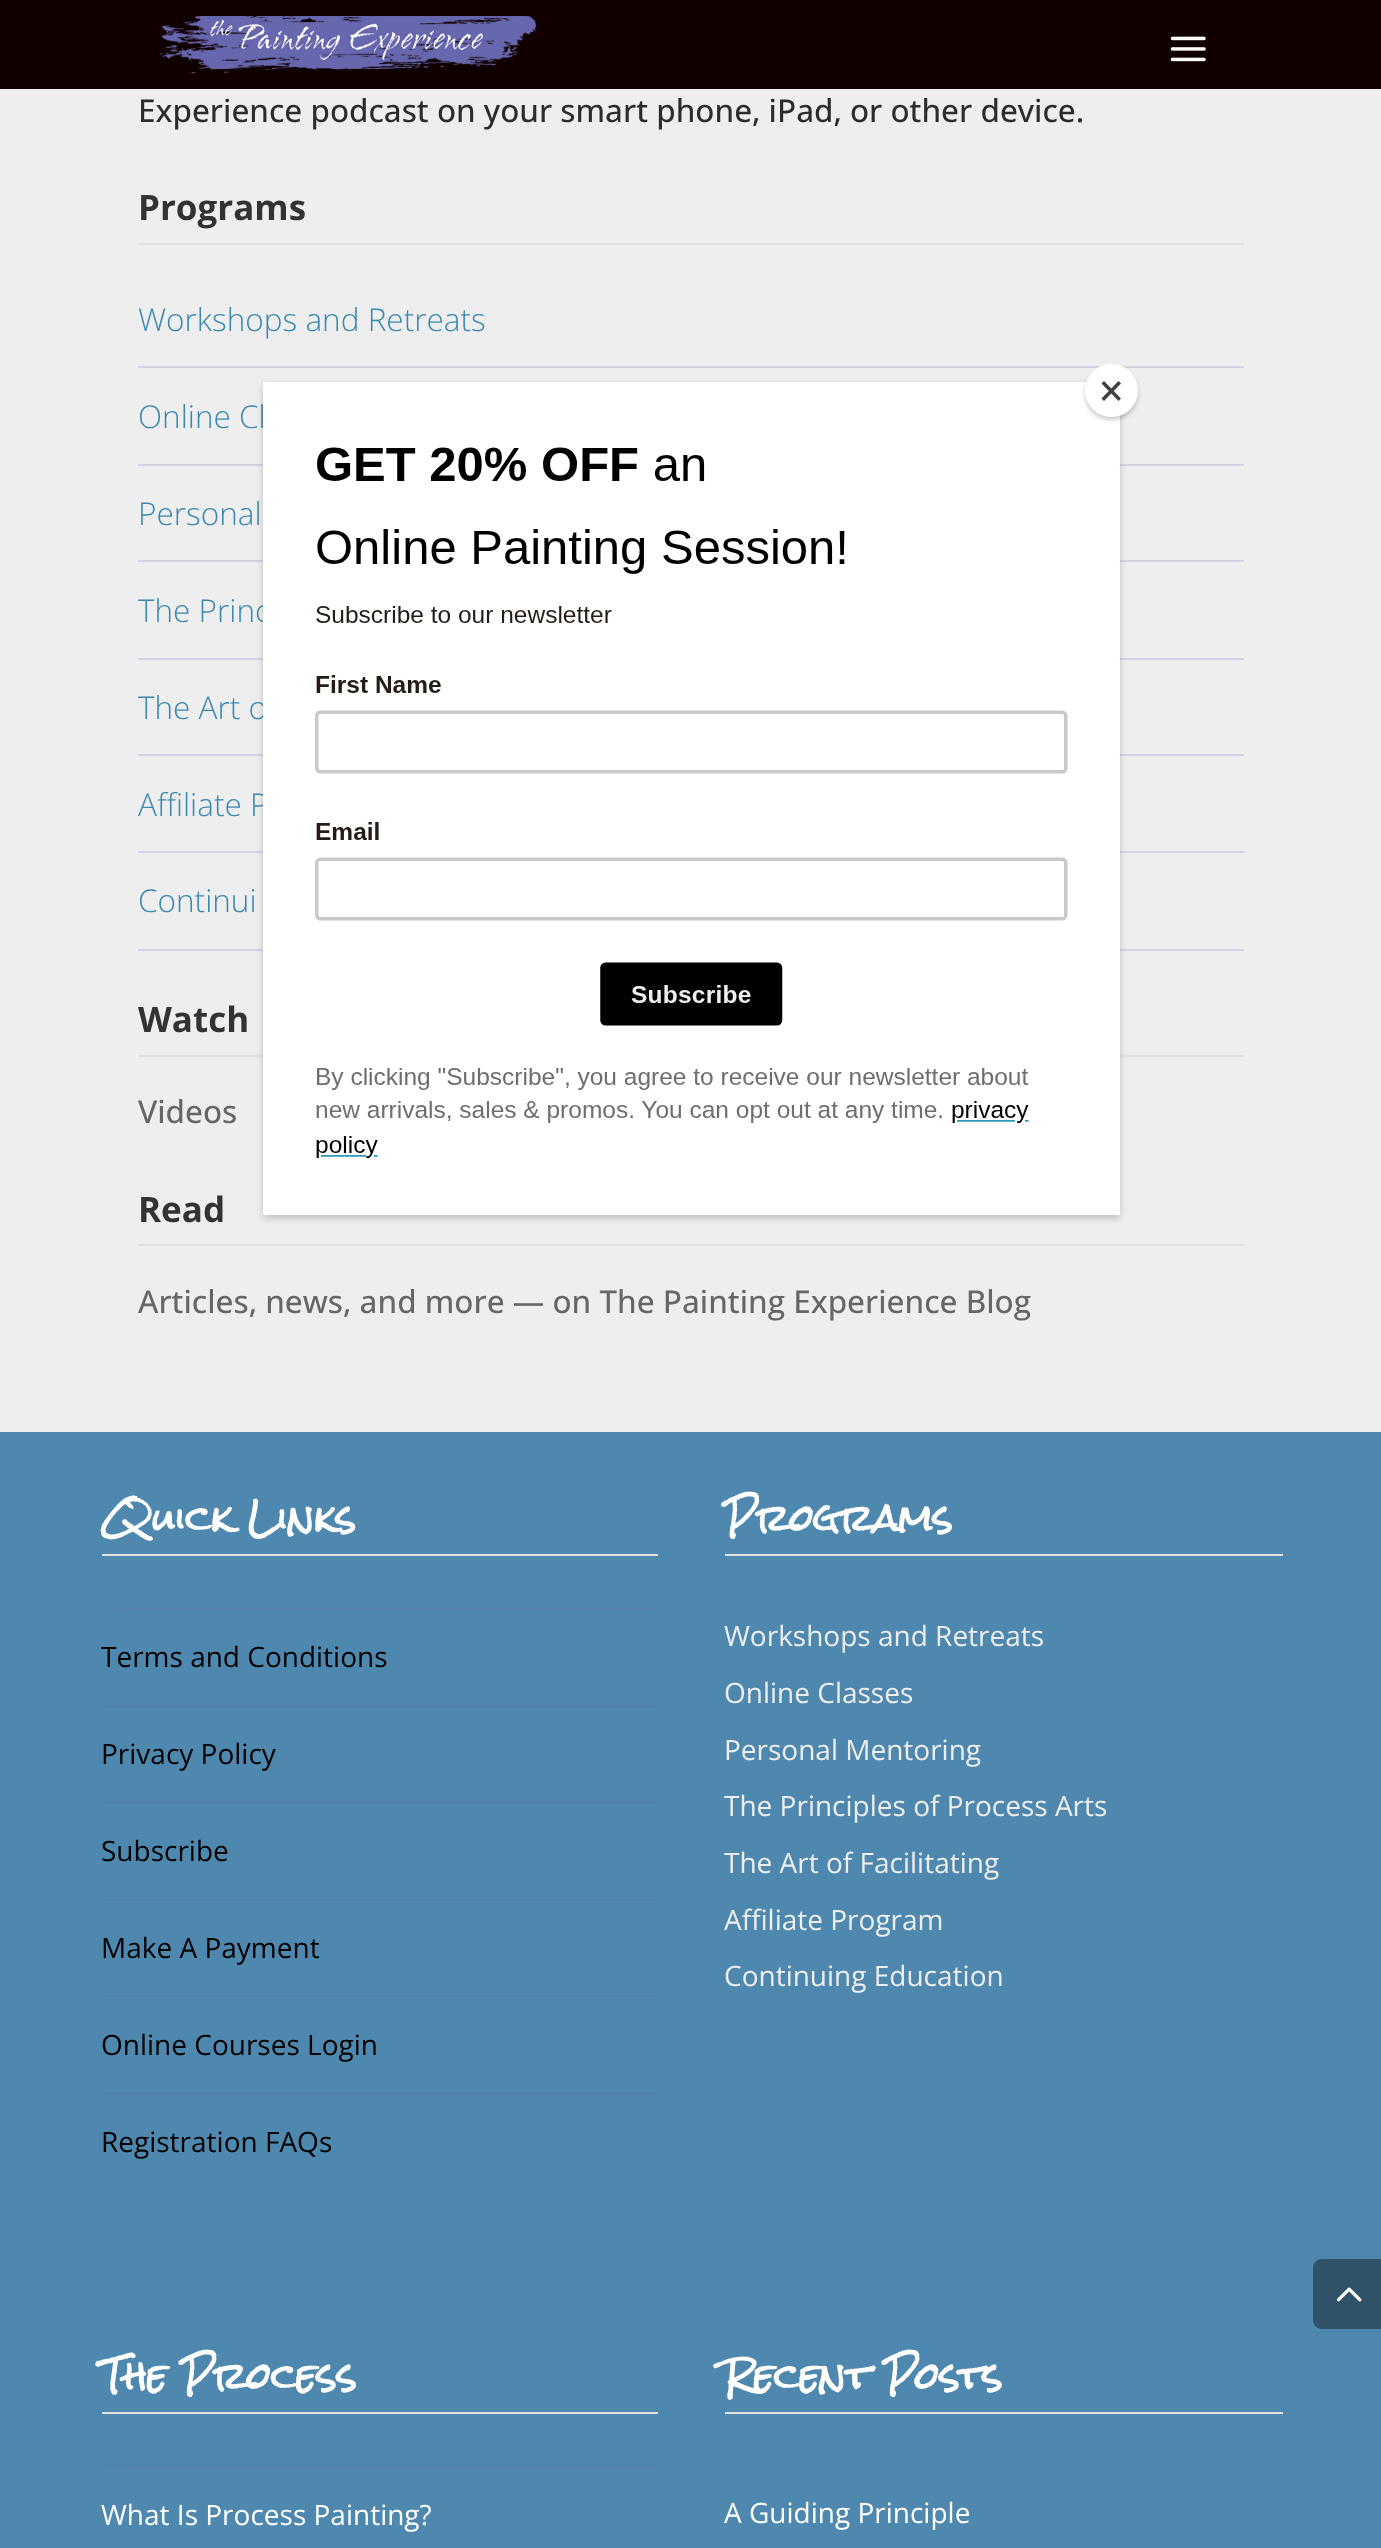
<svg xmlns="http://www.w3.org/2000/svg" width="1381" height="2548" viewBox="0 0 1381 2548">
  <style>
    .t1 { font: 500 31.5px Open Sans; fill: #2c2c2c; }
    .t2 { font: bold 35px Open Sans; fill: #333; }
    .t3 { font: 300 31.5px Open Sans; fill: #3c89ae; }
    .t4 { font: 500 31.5px Open Sans; fill: #666; }
    .t5 { font: bold 35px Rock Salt; fill: #fff; }
    .t6 { font: 28px Open Sans; fill: #000; }
    .t7 { font: 28px Open Sans; fill: #eee; }
    .t8 { font: 28px Open Sans; fill: #fff; }
  </style>
  <rect width="100%" height="100%" fill="#eee"/>
  <rect x="0" y="0" width="1381" height="89" fill="#100"/>
  <image x="159" y="16" width="378" height="58" href="images/1.png"/>
  <image x="1170" y="36" width="36" height="26" href="images/2.png"/>
  <text x="138" y="122" class="t1">Experience podcast on your smart phone, iPad, or other device.</text>
  <rect x="138" y="243" width="1106" height="2" fill="#e1e1e1"/>
  <text x="138" y="220" class="t2">Programs</text>
  <rect x="138" y="366" width="1106" height="2" fill="#d3d3e1"/>
  <text x="138" y="331" class="t3">Workshops and Retreats</text>
  <rect x="138" y="464" width="1106" height="2" fill="#d3d3e1"/>
  <text x="138" y="428" class="t3">Online Cl</text>
  <rect x="138" y="560" width="1106" height="2" fill="#d3d3e1"/>
  <text x="138" y="525" class="t3">Personal</text>
  <rect x="138" y="658" width="1106" height="2" fill="#d3d3e1"/>
  <text x="138" y="622" class="t3">The Princ</text>
  <rect x="138" y="754" width="1106" height="2" fill="#d3d3e1"/>
  <text x="138" y="719" class="t3">The Art o</text>
  <rect x="138" y="851" width="1106" height="2" fill="#d3d3e1"/>
  <text x="138" y="816" class="t3">Affiliate P</text>
  <rect x="138" y="949" width="1106" height="2" fill="#d3d3e1"/>
  <text x="138" y="912" class="t3">Continui</text>
  <rect x="138" y="1055" width="1106" height="2" fill="#e1e1e1"/>
  <text x="138" y="1032" class="t2">Watch</text>
  <text x="138" y="1123" class="t4">Videos</text>
  <rect x="138" y="1244" width="1106" height="2" fill="#e1e1e1"/>
  <text x="138" y="1222" class="t2">Read</text>
  <text x="138" y="1313" class="t4">Articles, news, and more — on The Painting Experience Blog</text>
  <rect x="0" y="1432" width="1381" height="1116" fill="#4e88ae"/>
  <rect x="102" y="1554" width="556" height="2" fill="#e1e1e1"/>
  <text x="101" y="1532" class="t5">Quick Links</text>
  <rect x="102" y="1608" width="556" height="2" fill="#5381ae"/>
  <text x="101" y="1667" class="t6">Terms and Conditions</text>
  <rect x="102" y="1705" width="556" height="2" fill="#5381ae"/>
  <text x="101" y="1764" class="t6">Privacy Policy</text>
  <rect x="102" y="1801" width="556" height="2" fill="#5381ae"/>
  <text x="101" y="1861" class="t6">Subscribe</text>
  <rect x="102" y="1899" width="556" height="2" fill="#5381ae"/>
  <text x="101" y="1958" class="t6">Make A Payment</text>
  <rect x="102" y="1995" width="556" height="2" fill="#5381ae"/>
  <text x="101" y="2055" class="t6">Online Courses Login</text>
  <rect x="102" y="2093" width="556" height="2" fill="#5381ae"/>
  <text x="101" y="2152" class="t6">Registration FAQs</text>
  <rect x="725" y="1554" width="558" height="2" fill="#e1e1e1"/>
  <text x="724" y="1532" class="t5">Programs</text>
  <text x="724" y="1646" class="t7">Workshops and Retreats</text>
  <text x="724" y="1703" class="t7">Online Classes</text>
  <text x="724" y="1760" class="t7">Personal Mentoring</text>
  <text x="724" y="1816" class="t7">The Principles of Process Arts</text>
  <text x="724" y="1873" class="t7">The Art of Facilitating</text>
  <text x="724" y="1930" class="t7">Affiliate Program</text>
  <text x="724" y="1986" class="t7">Continuing Education</text>
  <rect x="102" y="2412" width="556" height="2" fill="#e1e1e1"/>
  <text x="101" y="2390" class="t5">The Process</text>
  <rect x="102" y="2466" width="556" height="2" fill="#5381ae"/>
  <text x="101" y="2525" class="t8">What Is Process Painting?</text>
  <rect x="725" y="2412" width="558" height="2" fill="#e1e1e1"/>
  <text x="724" y="2390" class="t5">Recent Posts</text>
  <text x="724" y="2523" class="t8">A Guiding Principle</text>
  <rect x="263" y="385" width="857" height="833" fill="#00000033" filter="blur(3.5px)"/>
  <image x="263" y="382" width="857" height="833" href="images/3.png"/>
  <rect x="1085" y="368" width="53" height="52" rx="26" fill="#00000033" filter="blur(2px)"/>
  <circle cx="1111.5" cy="390.5" r="26.5" fill="#fff"/>
  <path d="M1118.5 381L1121 383.5L1104 401L1101.5 398.5Z" fill="#414141"/>
  <path d="M1101.5 383.5L1104 381L1121 398.5L1118.5 401Z" fill="#414141"/>
  <path d="M1322 2259H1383V2329H1322C1317 2329 1313 2325 1313 2320V2268C1313 2263 1317 2259 1322 2259Z" fill="#2f5268"/>
  <image x="1336" y="2287" width="26" height="15" href="images/4.png"/>
</svg>
